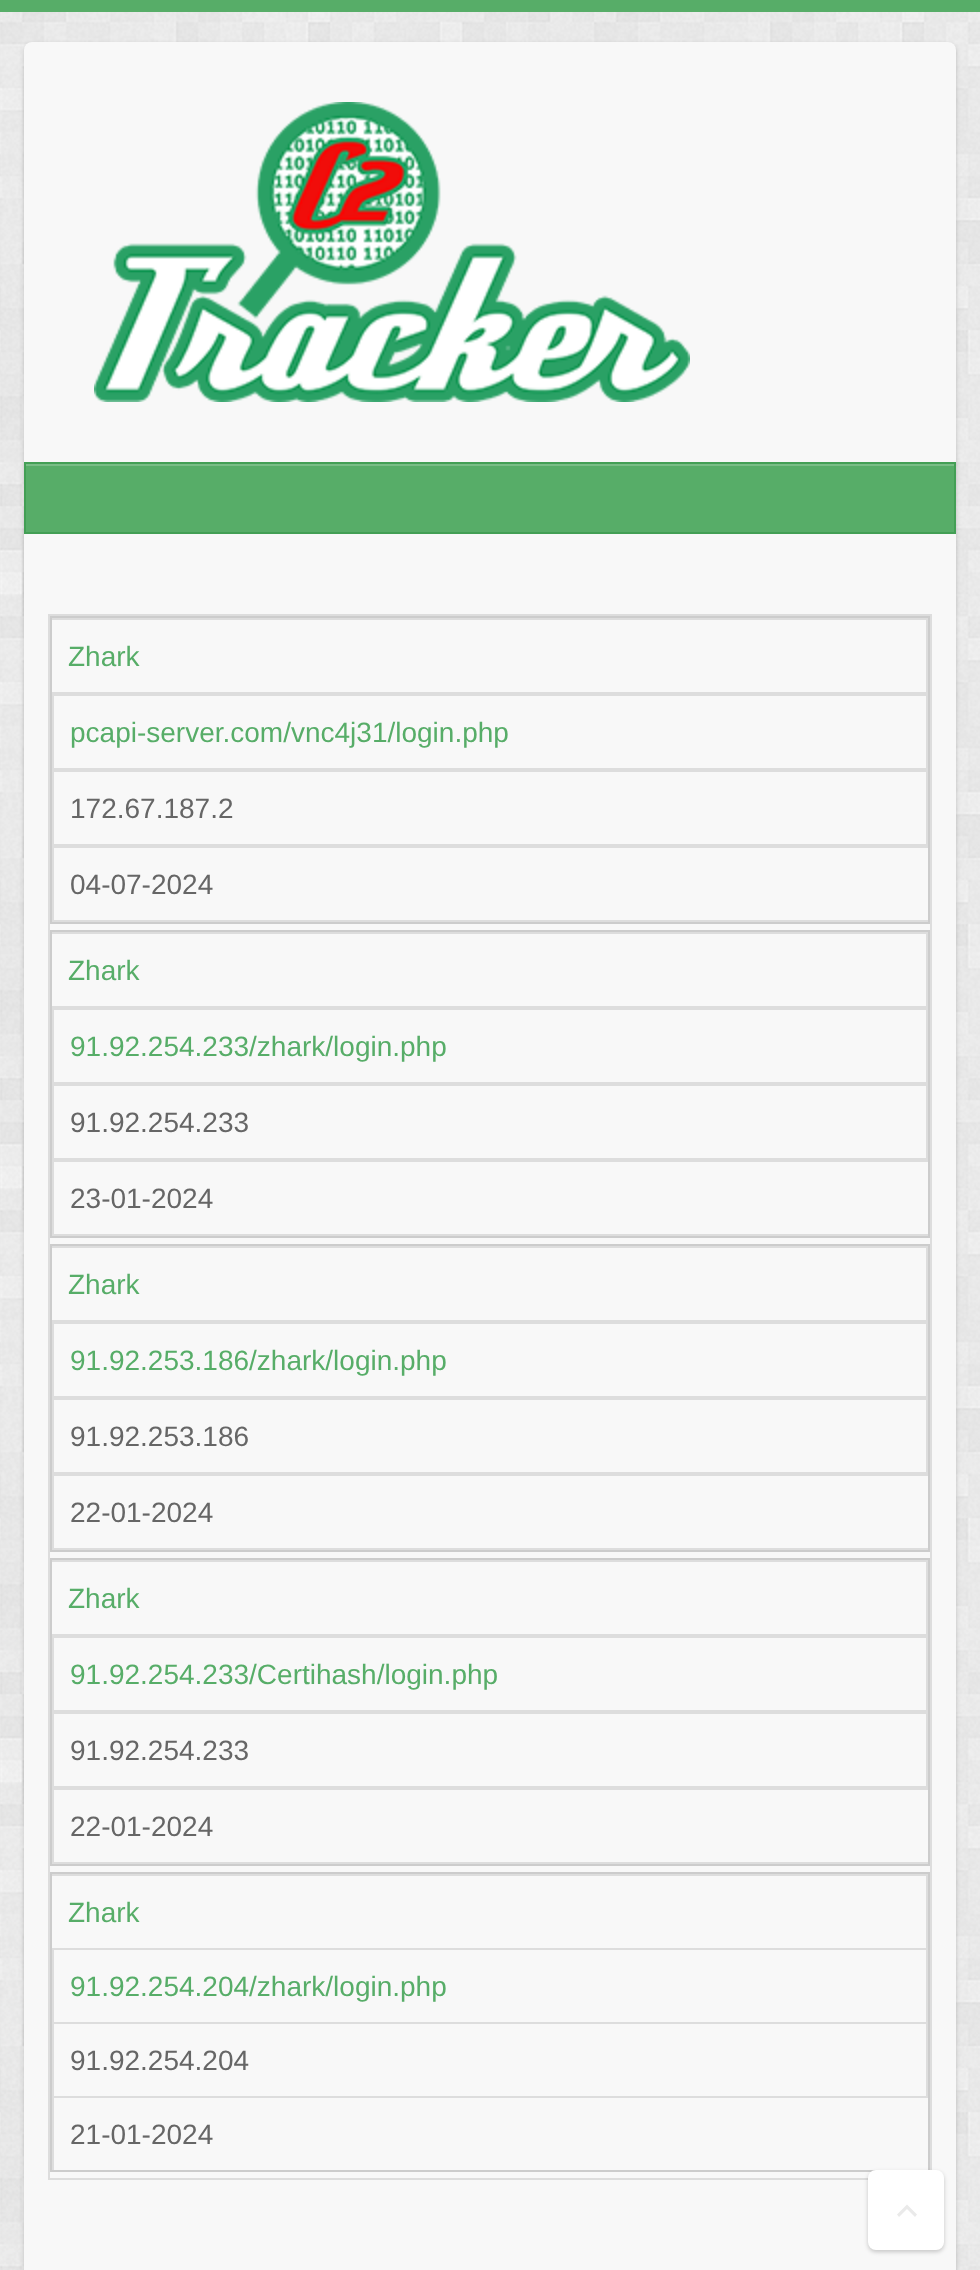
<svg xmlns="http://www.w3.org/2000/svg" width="980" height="2270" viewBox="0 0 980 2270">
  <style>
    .t1 { font: 28px Liberation Sans; fill: #57ad68; }
    .t2 { font: 28px Liberation Sans; fill: #666; }
  </style>
  <rect width="100%" height="100%" fill="#fff"/>
  <image x="0" y="12" width="980" height="2258" href="images/1.png"/>
  <rect x="0" y="0" width="980" height="12" fill="#57ad68"/>
  <rect x="24" y="44" width="932" height="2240" rx="8" fill="#00000033" filter="blur(2px)"/>
  <rect x="24" y="42" width="932" height="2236" rx="8" fill="#f8f8f8"/>
  <image x="94" y="102" width="596" height="300" href="images/2.png"/>
  <rect x="26" y="466" width="928" height="66" fill="#57ad68"/>
  <rect x="26" y="464" width="928" height="2" fill="#79bd86"/>
  <rect x="25" y="463" width="930" height="70" fill="none" stroke="#439f55" stroke-width="2"/>
  <rect x="49" y="615" width="882" height="1564" fill="none" stroke="#ddd" stroke-width="2"/>
  <rect x="51" y="617" width="878" height="306" fill="none" stroke="#ccc" stroke-width="2"/>
  <rect x="52" y="618" width="876" height="2" fill="#ddd"/>
  <rect x="926" y="618" width="2" height="76" fill="#ddd"/>
  <rect x="52" y="692" width="876" height="2" fill="#ddd"/>
  <text x="68" y="666" class="t1">Zhark</text>
  <rect x="53" y="695" width="874" height="74" fill="none" stroke="#ddd" stroke-width="2"/>
  <text x="70" y="742" class="t1">pcapi-server.com/vnc4j31/login.php</text>
  <rect x="53" y="771" width="874" height="74" fill="none" stroke="#ddd" stroke-width="2"/>
  <text x="70" y="818" class="t2">172.67.187.2</text>
  <rect x="52" y="846" width="876" height="2" fill="#ddd"/>
  <rect x="52" y="920" width="876" height="2" fill="#ddd"/>
  <rect x="52" y="846" width="2" height="76" fill="#ddd"/>
  <text x="70" y="894" class="t2">04-07-2024</text>
  <rect x="51" y="931" width="878" height="306" fill="none" stroke="#ccc" stroke-width="2"/>
  <rect x="52" y="932" width="876" height="2" fill="#ddd"/>
  <rect x="926" y="932" width="2" height="76" fill="#ddd"/>
  <rect x="52" y="1006" width="876" height="2" fill="#ddd"/>
  <text x="68" y="980" class="t1">Zhark</text>
  <rect x="53" y="1009" width="874" height="74" fill="none" stroke="#ddd" stroke-width="2"/>
  <text x="70" y="1056" class="t1">91.92.254.233/zhark/login.php</text>
  <rect x="53" y="1085" width="874" height="74" fill="none" stroke="#ddd" stroke-width="2"/>
  <text x="70" y="1132" class="t2">91.92.254.233</text>
  <rect x="52" y="1160" width="876" height="2" fill="#ddd"/>
  <rect x="52" y="1234" width="876" height="2" fill="#ddd"/>
  <rect x="52" y="1160" width="2" height="76" fill="#ddd"/>
  <text x="70" y="1208" class="t2">23-01-2024</text>
  <rect x="51" y="1245" width="878" height="306" fill="none" stroke="#ccc" stroke-width="2"/>
  <rect x="52" y="1246" width="876" height="2" fill="#ddd"/>
  <rect x="926" y="1246" width="2" height="76" fill="#ddd"/>
  <rect x="52" y="1320" width="876" height="2" fill="#ddd"/>
  <text x="68" y="1294" class="t1">Zhark</text>
  <rect x="53" y="1323" width="874" height="74" fill="none" stroke="#ddd" stroke-width="2"/>
  <text x="70" y="1370" class="t1">91.92.253.186/zhark/login.php</text>
  <rect x="53" y="1399" width="874" height="74" fill="none" stroke="#ddd" stroke-width="2"/>
  <text x="70" y="1446" class="t2">91.92.253.186</text>
  <rect x="52" y="1474" width="876" height="2" fill="#ddd"/>
  <rect x="52" y="1548" width="876" height="2" fill="#ddd"/>
  <rect x="52" y="1474" width="2" height="76" fill="#ddd"/>
  <text x="70" y="1522" class="t2">22-01-2024</text>
  <rect x="51" y="1559" width="878" height="306" fill="none" stroke="#ccc" stroke-width="2"/>
  <rect x="52" y="1560" width="876" height="2" fill="#ddd"/>
  <rect x="926" y="1560" width="2" height="76" fill="#ddd"/>
  <rect x="52" y="1634" width="876" height="2" fill="#ddd"/>
  <text x="68" y="1608" class="t1">Zhark</text>
  <rect x="53" y="1637" width="874" height="74" fill="none" stroke="#ddd" stroke-width="2"/>
  <text x="70" y="1684" class="t1">91.92.254.233/Certihash/login.php</text>
  <rect x="53" y="1713" width="874" height="74" fill="none" stroke="#ddd" stroke-width="2"/>
  <text x="70" y="1760" class="t2">91.92.254.233</text>
  <rect x="52" y="1788" width="876" height="2" fill="#ddd"/>
  <rect x="52" y="1862" width="876" height="2" fill="#ddd"/>
  <rect x="52" y="1788" width="2" height="76" fill="#ddd"/>
  <text x="70" y="1836" class="t2">22-01-2024</text>
  <rect x="51" y="1873" width="878" height="298" fill="none" stroke="#ccc" stroke-width="2"/>
  <rect x="52" y="1874" width="876" height="2" fill="#ddd"/>
  <rect x="926" y="1874" width="2" height="74" fill="#ddd"/>
  <text x="68" y="1922" class="t1">Zhark</text>
  <rect x="52" y="1948" width="876" height="2" fill="#ddd"/>
  <rect x="926" y="1948" width="2" height="74" fill="#ddd"/>
  <rect x="52" y="1948" width="2" height="74" fill="#ddd"/>
  <text x="70" y="1996" class="t1">91.92.254.204/zhark/login.php</text>
  <rect x="52" y="2022" width="876" height="2" fill="#ddd"/>
  <rect x="926" y="2022" width="2" height="74" fill="#ddd"/>
  <rect x="52" y="2022" width="2" height="74" fill="#ddd"/>
  <text x="70" y="2070" class="t2">91.92.254.204</text>
  <rect x="52" y="2096" width="876" height="2" fill="#ddd"/>
  <rect x="52" y="2096" width="2" height="74" fill="#ddd"/>
  <text x="70" y="2144" class="t2">21-01-2024</text>
  <rect x="868" y="2172" width="76" height="80" rx="8" fill="#00000033" filter="blur(2px)"/>
  <rect x="868" y="2170" width="76" height="80" rx="8" fill="#fff"/>
  <path d="M915 2217L907 2209L899 2217L897 2214.5L907 2204.5L917 2214.5Z" fill="#eaeaea"/>
</svg>
